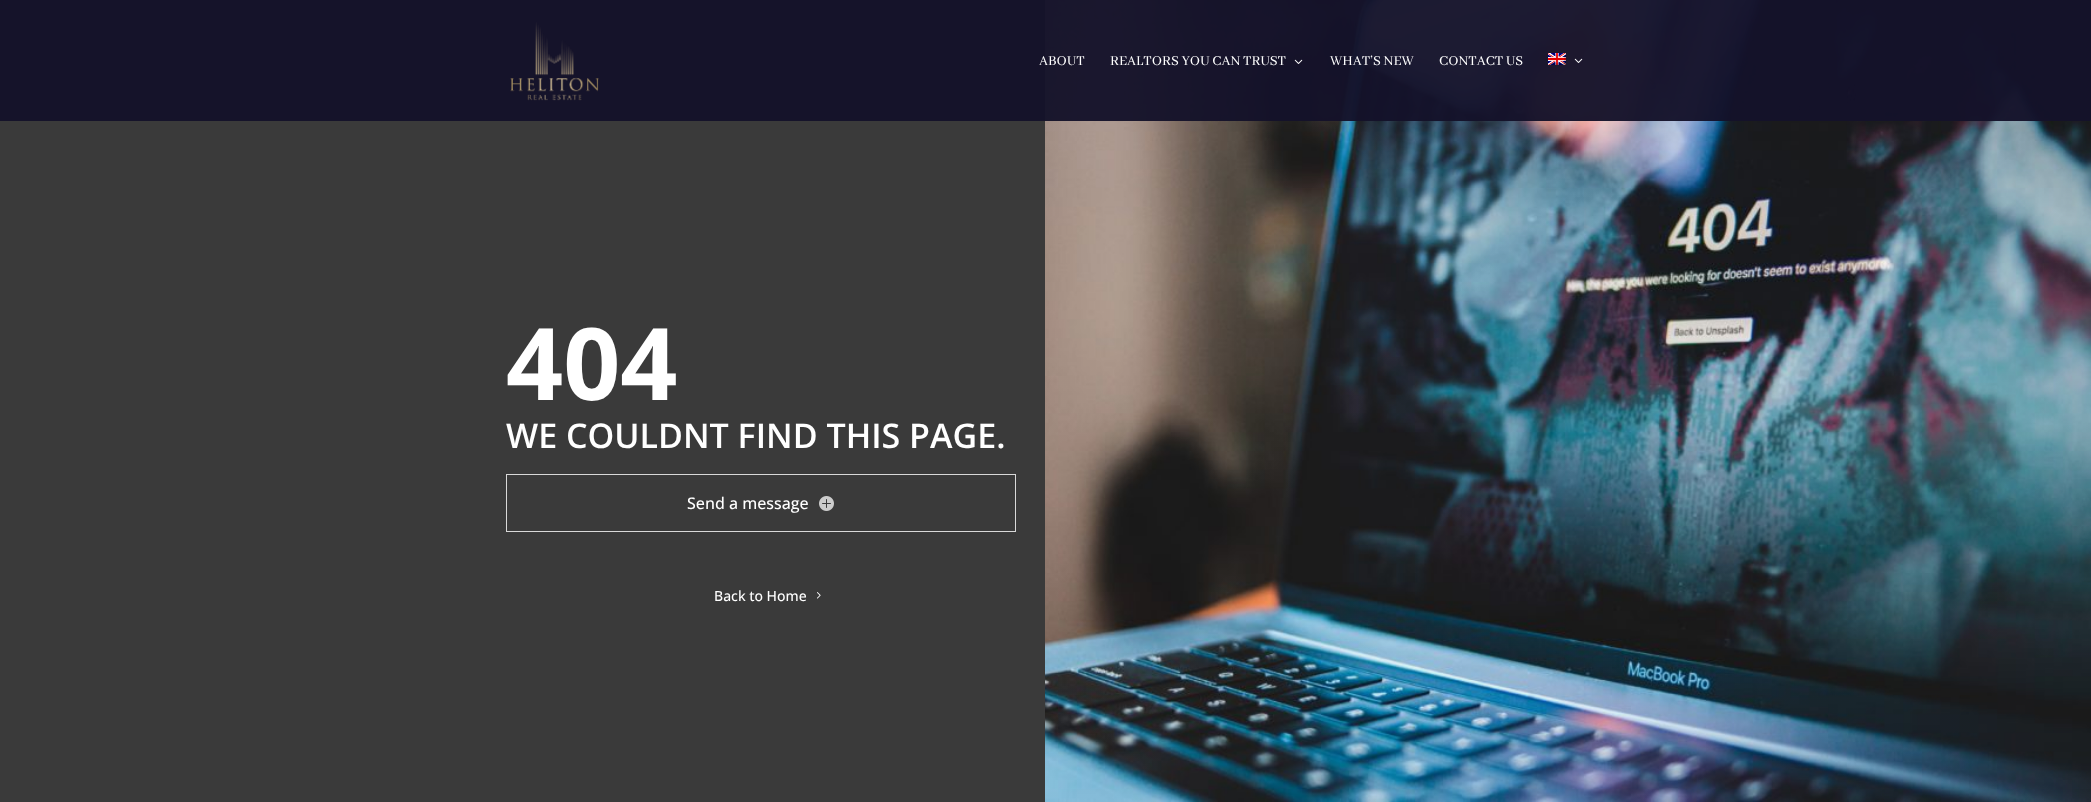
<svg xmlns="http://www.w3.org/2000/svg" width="2091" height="802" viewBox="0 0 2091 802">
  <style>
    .t1 { font: 15px Abhaya Libre; fill: #fff; }
    .t2 { font: bold 100px Open Sans; fill: #fff; }
    .t3 { font: 600 34px Open Sans; fill: #fff; }
    .t4 { font: 500 16px Open Sans; fill: #fff; }
    .t5 { font: 500 14px Open Sans; fill: #fff; }
  </style>
  <rect width="100%" height="100%" fill="#fff"/>
  <image x="0" y="0" width="2091" height="802" href="images/5.png"/>
  <rect x="0" y="0" width="2091" height="121" fill="#14122af5"/>
  <image x="510" y="22" width="89" height="79" href="images/1.png"/>
  <text x="1039" y="65" class="t1">ABOUT</text>
  <text x="1110" y="65" class="t1">REALTORS YOU CAN TRUST</text>
  <image x="1294" y="59" width="9" height="5" href="images/2.png"/>
  <text x="1330" y="65" class="t1">WHAT’S NEW</text>
  <text x="1439" y="65" class="t1">CONTACT US</text>
  <image x="1548" y="53" width="18" height="12" href="images/3.png"/>
  <image x="1574" y="58" width="9" height="5" href="images/4.png"/>
  <text x="506" y="400" class="t2">404</text>
  <text x="506" y="448" class="t3">WE COULDNT FIND THIS PAGE.</text>
  <rect x="506.5" y="474.5" width="509" height="57" fill="none" stroke="#d9d9d9"/>
  <text x="687" y="509" class="t4">Send a message</text>
  <image x="819" y="496" width="15" height="15" href="images/6.png"/>
  <text x="714" y="601" class="t5">Back to Home</text>
  <image x="817" y="592" width="4" height="7" href="images/7.png"/>
</svg>
